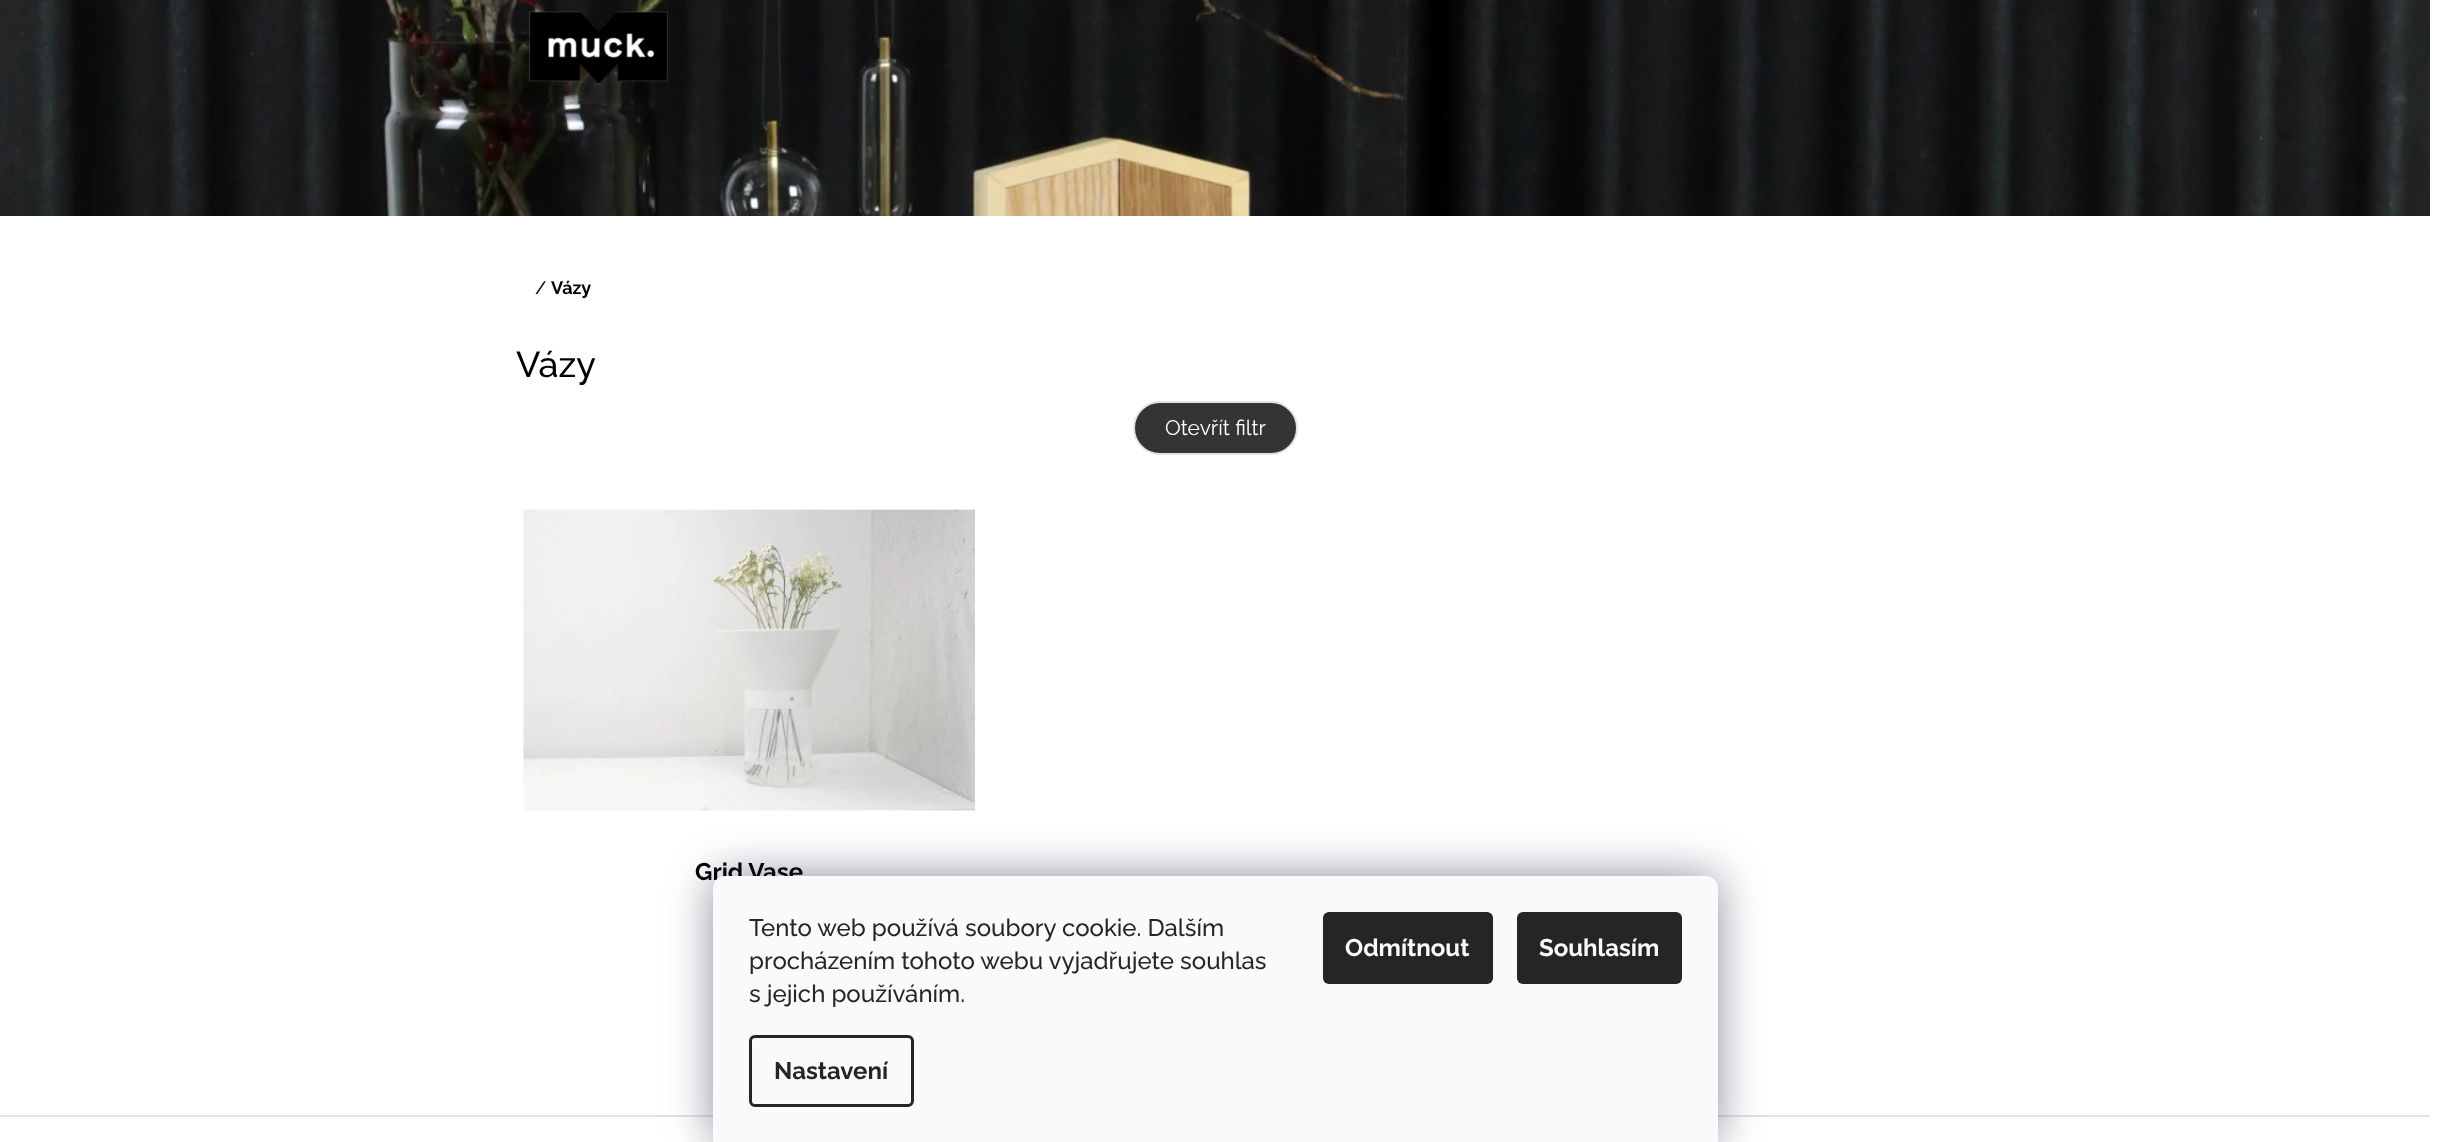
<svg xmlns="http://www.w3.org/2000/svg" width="2452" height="1142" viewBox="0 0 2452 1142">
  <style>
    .t1 { font: 500 18px Raleway; fill: #000; }
    .t2 { font: bold 18px Raleway; fill: #000; }
    .t3 { font: 500 36px Raleway; fill: #000; }
    .t4 { font: 21px Raleway; fill: #fff; }
    .t5 { font: bold 24px Raleway; fill: #000; }
    .t6 { font: 500 24px Raleway; fill: #252525; }
    .t7 { font: bold 24px Raleway; fill: #252525; }
    .t8 { font: bold 24px Raleway; fill: #f8fafb; }
  </style>
  <rect width="100%" height="100%" fill="#fff"/>
  <image x="0" y="0" width="2430" height="216" href="images/1.png"/>
  <image x="529" y="11" width="139" height="73" href="images/2.png"/>
  <text x="535" y="294" class="t1">/</text>
  <text x="551" y="294" class="t2">Vázy</text>
  <text x="516" y="377" class="t3">Vázy</text>
  <rect x="1134" y="402" width="163" height="52" rx="26" fill="#343434" stroke="#e3e3e3" stroke-width="2"/>
  <text x="1165" y="435" class="t4">Otevřít filtr</text>
  <image x="523" y="509" width="452" height="302" href="images/3.png"/>
  <text x="695" y="880" class="t5">Grid Vase</text>
  <rect x="0" y="1115" width="2430" height="2" fill="#e3e3e3"/>
  <rect x="713" y="876" width="1005" height="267" rx="12" fill="#1b193980" filter="blur(22.5px)"/>
  <path d="M725 876H1706C1712.5 876 1718 881.5 1718 888V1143H713V888C713 881.5 718.5 876 725 876Z" fill="#f8fafb"/>
  <text x="749" y="936" class="t6">Tento web používá soubory cookie. Dalším</text>
  <text x="749" y="969" class="t6">procházením tohoto webu vyjadřujete souhlas</text>
  <text x="749" y="1002" class="t6">s jejich používáním.</text>
  <rect x="750.5" y="1036.5" width="162" height="69" rx="4.5" fill="none" stroke="#252525" stroke-width="3"/>
  <text x="774" y="1079" class="t7">Nastavení</text>
  <rect x="1323" y="912" width="170" height="72" rx="6" fill="#252525"/>
  <text x="1345" y="956" class="t8">Odmítnout</text>
  <rect x="1517" y="912" width="165" height="72" rx="6" fill="#252525"/>
  <text x="1539" y="956" class="t8">Souhlasím</text>
</svg>
